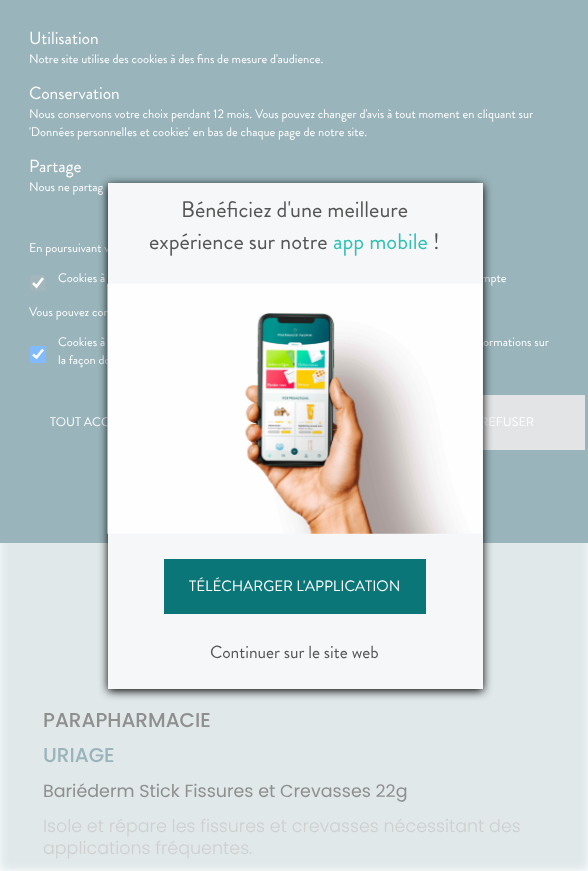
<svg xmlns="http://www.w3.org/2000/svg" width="588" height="871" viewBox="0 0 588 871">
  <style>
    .t1 { font: 17.5px Brandon Grotesque; fill: #fff; }
    .t2 { font: 12.5px Brandon Grotesque; fill: #fff; }
    .t3 { font: 22.5px Brandon Grotesque; fill: #555; }
    .t4 { font: 22.5px Brandon Grotesque; fill: #30c1b5; }
    .t5 { font: 15px Brandon Grotesque; fill: #fff; }
    .t6 { font: 17.5px Brandon Grotesque; fill: #555; }
    .t7 { font: 500 20px Poppins; fill: #8f8f8f; }
    .t8 { font: 500 20px Poppins; fill: #99b4bb; }
    .t9 { font: 17.5px Poppins; fill: #8f8f8f; }
    .t10 { font: 300 17.5px Poppins; fill: #cfcfcf; }
  </style>
  <rect width="100%" height="100%" fill="#fff"/>
  <rect x="0" y="0" width="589" height="871" fill="#99b4bb4d" filter="blur(5px)"/>
  <rect x="0" y="0" width="588" height="543" fill="#99b4bb"/>
  <text x="29" y="44" class="t1">Utilisation</text>
  <text x="29" y="63" class="t2">Notre site utilise des cookies à des fins de mesure d'audience.</text>
  <text x="29" y="99" class="t1">Conservation</text>
  <text x="29" y="118" class="t2">Nous conservons votre choix pendant 12 mois. Vous pouvez changer d'avis à tout moment en cliquant sur</text>
  <text x="29" y="136" class="t2">'Données personnelles et cookies' en bas de chaque page de notre site.</text>
  <text x="29" y="172" class="t1">Partage</text>
  <text x="29" y="191" class="t2">Nous ne partag</text>
  <text x="29" y="252" class="t2">En poursuivant v</text>
  <rect x="30" y="275" width="16" height="16" rx="2.5" fill="#a3b6bb"/>
  <path d="M33 283L36.5 286.5L43 278" fill="none" stroke="#fff" stroke-width="2.6"/>
  <text x="58" y="282" class="t2">Cookies à</text>
  <text x="481" y="282" class="t2">mpte</text>
  <text x="29" y="316" class="t2">Vous pouvez con</text>
  <rect x="30" y="346" width="16" height="17" rx="2.5" fill="#80baff"/>
  <path d="M33 354.5L36.5 357.5L43 349.5" fill="none" stroke="#fff" stroke-width="2.6"/>
  <text x="58" y="346" class="t2">Cookies à</text>
  <text x="483" y="346" class="t2">ormations sur</text>
  <text x="58" y="364" class="t2">la façon do</text>
  <text x="50" y="426" class="t2">TOUT ACC</text>
  <rect x="483" y="395" width="102" height="55" fill="#e2e4e5"/>
  <text x="480" y="426" class="t2">REFUSER</text>
  <rect x="108" y="185" width="375" height="506" fill="#000" filter="blur(5px)"/>
  <rect x="108" y="183" width="375" height="506" fill="#f6f7f9"/>
  <text x="181" y="217" class="t3">Bénéficiez d'une meilleure</text>
  <text x="149" y="249" class="t3">expérience sur notre</text>
  <text x="333" y="249" class="t4">app mobile</text>
  <text x="433" y="249" class="t3">!</text>
  <image x="107" y="283" width="375" height="251" href="images/1.png"/>
  <rect x="164" y="559" width="262" height="55" fill="#0b7678"/>
  <text x="189" y="591" class="t5">TÉLÉCHARGER L'APPLICATION</text>
  <text x="210" y="658" class="t6">Continuer sur le site web</text>
  <text x="43" y="727" class="t7">PARAPHARMACIE</text>
  <text x="43" y="762" class="t8">URIAGE</text>
  <text x="43" y="797" class="t9">Bariéderm Stick Fissures et Crevasses 22g</text>
  <text x="43" y="832" class="t10">Isole et répare les fissures et crevasses nécessitant des</text>
  <text x="43" y="854" class="t10">applications fréquentes.</text>
</svg>
